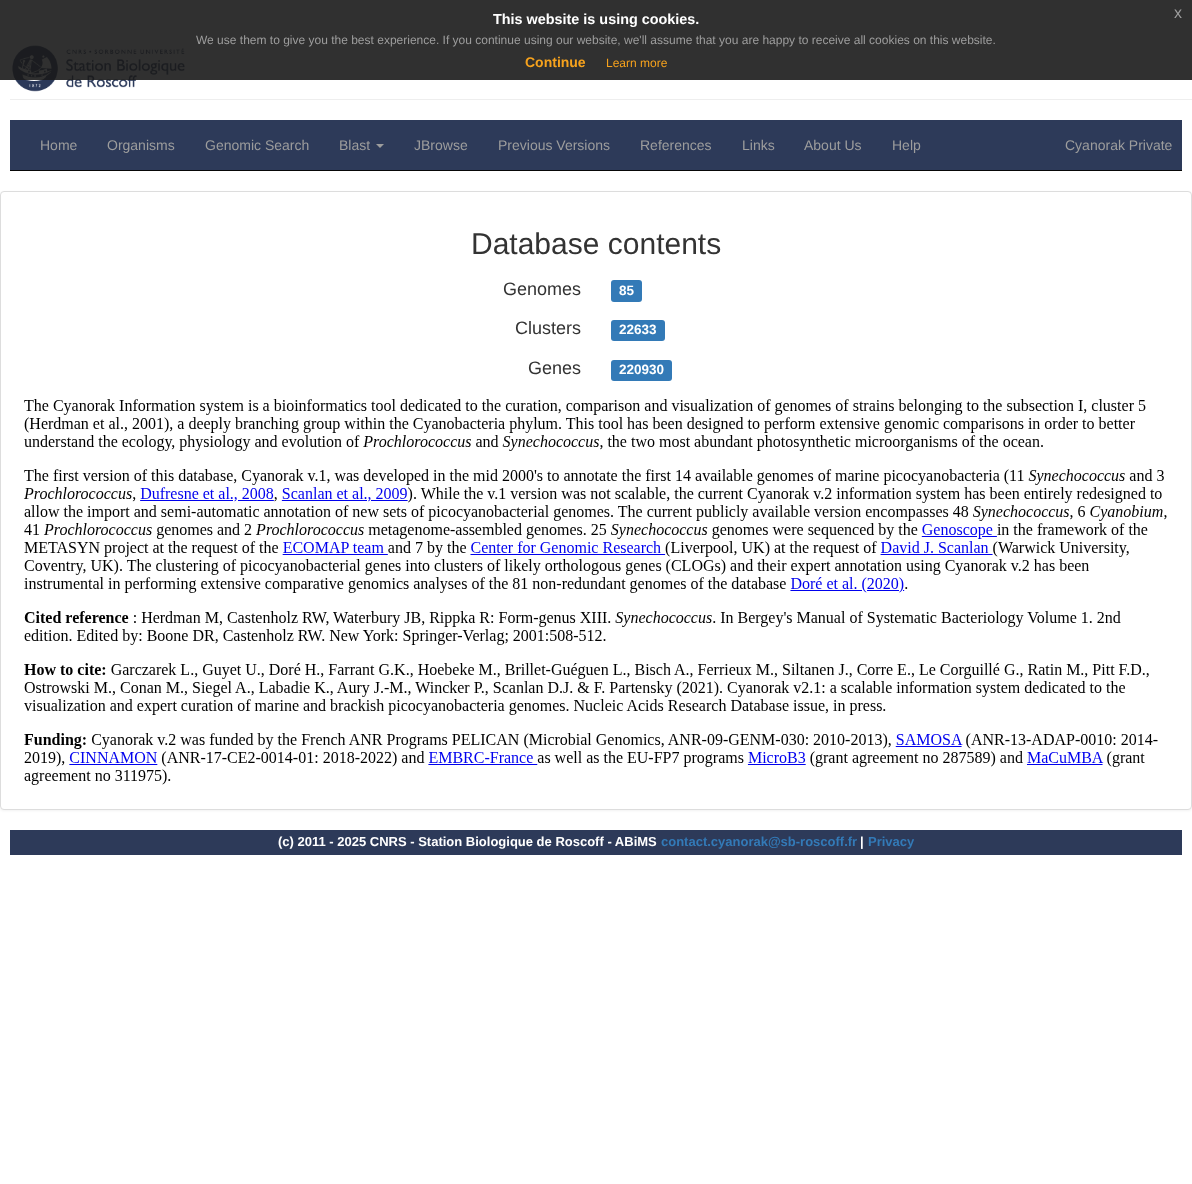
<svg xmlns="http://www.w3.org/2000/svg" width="1192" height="1184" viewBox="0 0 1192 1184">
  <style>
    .t1 { font: bold 14.4px Liberation Sans; fill: #fff; }
    .t2 { font: 16px Liberation Sans; fill: #9d9d9d; }
    .t3 { font: 12px Liberation Sans; fill: #9d9d9d; }
    .t4 { font: bold 14px Liberation Sans; fill: #f6a21d; }
    .t5 { font: 12px Liberation Sans; fill: #f6a21d; }
    .t6 { font: 14px Liberation Sans; fill: #9d9d9d; }
    .t7 { font: 30px Liberation Sans; fill: #333; }
    .t8 { font: 18px Liberation Sans; fill: #333; }
    .t9 { font: bold 13.5px Liberation Sans; fill: #fff; }
    .t10 { font: bold 13px Liberation Sans; fill: #fff; }
    .t11 { font: bold 13px Liberation Sans; fill: #337ab7; }
  </style>
  <rect width="100%" height="100%" fill="#fff"/>
  <image x="12" y="45" width="173" height="47" href="images/1.png"/>
  <rect x="0" y="0" width="1192" height="80" fill="#191919e6"/>
  <text x="493" y="24" class="t1">This website is using cookies.</text>
  <text x="1174" y="18" class="t2">x</text>
  <text x="196" y="44" class="t3">We use them to give you the best experience. If you continue using our website, we'll assume that you are happy to receive all cookies on this website.</text>
  <text x="525" y="67" class="t4">Continue</text>
  <text x="606" y="67" class="t5">Learn more</text>
  <rect x="10" y="99" width="1182" height="1" fill="#eee"/>
  <rect x="10" y="120" width="1172" height="50" fill="#2d3a59"/>
  <rect x="10" y="170" width="1172" height="1" fill="#080808"/>
  <text x="40" y="150" class="t6">Home</text>
  <text x="107" y="150" class="t6">Organisms</text>
  <text x="205" y="150" class="t6">Genomic Search</text>
  <text x="339" y="150" class="t6">Blast</text>
  <path d="M376 144H384L380 148Z" fill="#9d9d9d"/>
  <text x="414" y="150" class="t6">JBrowse</text>
  <text x="498" y="150" class="t6">Previous Versions</text>
  <text x="640" y="150" class="t6">References</text>
  <text x="742" y="150" class="t6">Links</text>
  <text x="804" y="150" class="t6">About Us</text>
  <text x="892" y="150" class="t6">Help</text>
  <text x="1065" y="150" class="t6">Cyanorak Private</text>
  <rect x="0" y="192" width="1192" height="619" rx="4" fill="#0000000d" filter="blur(1px)"/>
  <rect x="0.5" y="191.5" width="1191" height="618" rx="3.5" fill="#fff" stroke="#ddd"/>
  <text x="471" y="254" class="t7">Database contents</text>
  <text x="503" y="295" class="t8">Genomes</text>
  <rect x="611" y="280" width="31" height="22" rx="3" fill="#337ab7"/>
  <text x="619" y="295" class="t9">85</text>
  <text x="515" y="334" class="t8">Clusters</text>
  <rect x="611" y="320" width="54" height="21" rx="3" fill="#337ab7"/>
  <text x="619" y="334" class="t9">22633</text>
  <text x="528" y="374" class="t8">Genes</text>
  <rect x="611" y="360" width="61" height="21" rx="3" fill="#337ab7"/>
  <text x="619" y="374" class="t9">220930</text>
  <image x="23" y="399" width="1144" height="386" href="images/2.png"/>
  <rect x="10" y="830" width="1172" height="25" fill="#2d3a59"/>
  <text x="278" y="846" class="t10">(c) 2011 - 2025 CNRS - Station Biologique de Roscoff - ABiMS</text>
  <text x="661" y="846" class="t11">contact.cyanorak@sb-roscoff.fr</text>
  <text x="860" y="846" class="t10">|</text>
  <text x="868" y="846" class="t11">Privacy</text>
</svg>
